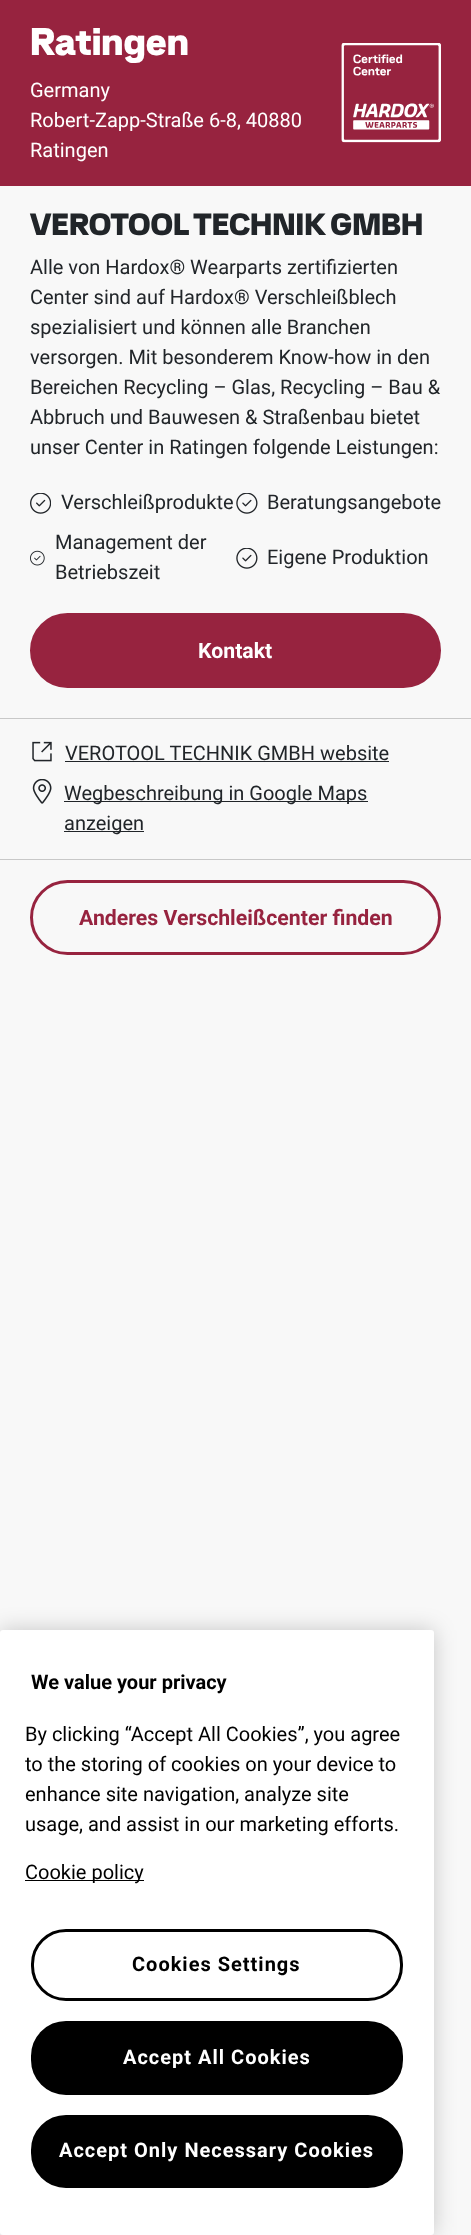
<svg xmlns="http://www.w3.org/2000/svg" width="471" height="2235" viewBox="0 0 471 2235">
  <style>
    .t1 { font: 900 38.5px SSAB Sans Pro; fill: #fff; }
    .t2 { font: 20px Roboto; fill: #fff; }
    .t3 { font: 900 30.75px SSAB Sans Pro; fill: #212529; }
    .t4 { font: 20px Roboto; fill: #212529; }
    .t5 { font: bold 21.25px Roboto; fill: #fff; }
    .t6 { font: bold 21.25px Roboto; fill: #97233f; }
    .t7 { font: bold 20px Roboto; fill: #000; }
    .t8 { font: 20px Roboto; fill: #000; }
    .t9 { font: bold 20px Roboto; letter-spacing: 1px; fill: #000; }
    .t10 { font: bold 20px Roboto; letter-spacing: 1px; fill: #fff; }
  </style>
  <rect width="100%" height="100%" fill="#f8f8f8"/>
  <rect x="0" y="0" width="471" height="186" fill="#97233f"/>
  <text x="30" y="55" class="t1">Ratingen</text>
  <text x="30" y="97" class="t2">Germany</text>
  <text x="30" y="127" class="t2">Robert-Zapp-Straße 6-8, 40880</text>
  <text x="30" y="157" class="t2">Ratingen</text>
  <image x="341" y="43" width="100" height="100" href="images/1.png"/>
  <text x="30" y="235" class="t3">VEROTOOL TECHNIK GMBH</text>
  <text x="30" y="274" class="t4">Alle von Hardox® Wearparts zertifizierten</text>
  <text x="30" y="304" class="t4">Center sind auf Hardox® Verschleißblech</text>
  <text x="30" y="334" class="t4">spezialisiert und können alle Branchen</text>
  <text x="30" y="364" class="t4">versorgen. Mit besonderem Know-how in den</text>
  <text x="30" y="394" class="t4">Bereichen Recycling – Glas, Recycling – Bau &amp;</text>
  <text x="30" y="424" class="t4">Abbruch und Bauwesen &amp; Straßenbau bietet</text>
  <text x="30" y="454" class="t4">unser Center in Ratingen folgende Leistungen:</text>
  <image x="30" y="493" width="21" height="21" href="images/2.png"/>
  <text x="61" y="509" class="t4">Verschleißprodukte</text>
  <image x="236" y="493" width="22" height="21" href="images/3.png"/>
  <text x="267" y="509" class="t4">Beratungsangebote</text>
  <image x="30" y="550" width="15" height="16" href="images/4.png"/>
  <text x="55" y="549" class="t4">Management der</text>
  <text x="55" y="579" class="t4">Betriebszeit</text>
  <image x="236" y="548" width="22" height="21" href="images/3.png"/>
  <text x="267" y="564" class="t4">Eigene Produktion</text>
  <rect x="31.5" y="614.5" width="408" height="72" rx="36" fill="#97233f" stroke="#97233f" stroke-width="3"/>
  <text x="198" y="658" class="t5">Kontakt</text>
  <rect x="0" y="718" width="471" height="1" fill="#c8c8c8"/>
  <rect x="0" y="859" width="471" height="1" fill="#c8c8c8"/>
  <image x="32" y="741" width="20" height="21" href="images/5.png"/>
  <text x="65" y="760" class="t4">VEROTOOL TECHNIK GMBH website</text>
  <rect x="65" y="761" width="324" height="1" fill="#212529"/>
  <image x="32" y="779" width="20" height="25" href="images/6.png"/>
  <rect x="64" y="801" width="304" height="1" fill="#212529"/>
  <text x="64" y="800" class="t4">Wegbeschreibung in Google Maps</text>
  <rect x="64" y="831" width="80" height="1" fill="#212529"/>
  <text x="64" y="830" class="t4">anzeigen</text>
  <rect x="31.5" y="881.5" width="408" height="72" rx="36" fill="none" stroke="#97233f" stroke-width="3"/>
  <text x="79" y="925" class="t6">Anderes Verschleißcenter finden</text>
  <rect x="0" y="1630" width="434" height="605" rx="3" fill="#00000033" filter="blur(11px)"/>
  <rect x="0" y="1630" width="434" height="605" rx="3" fill="#fff"/>
  <text x="31" y="1689" class="t7">We value your privacy</text>
  <text x="25" y="1741" class="t8">By clicking “Accept All Cookies”, you agree</text>
  <text x="25" y="1771" class="t8">to the storing of cookies on your device to</text>
  <text x="25" y="1801" class="t8">enhance site navigation, analyze site</text>
  <text x="25" y="1831" class="t8">usage, and assist in our marketing efforts.</text>
  <rect x="25" y="1880" width="119" height="1" fill="#000"/>
  <text x="25" y="1879" class="t8">Cookie policy</text>
  <rect x="32.5" y="1930.5" width="369" height="69" rx="33.5" fill="none" stroke="#000" stroke-width="3"/>
  <text x="132" y="1971" class="t9">Cookies Settings</text>
  <rect x="32.5" y="2022.5" width="369" height="71" rx="33.5" fill="#000" stroke="#000" stroke-width="3"/>
  <text x="123" y="2064" class="t10">Accept All Cookies</text>
  <rect x="32.5" y="2116.5" width="369" height="70" rx="33.5" fill="#000" stroke="#000" stroke-width="3"/>
  <text x="59" y="2157" class="t10">Accept Only Necessary Cookies</text>
</svg>
